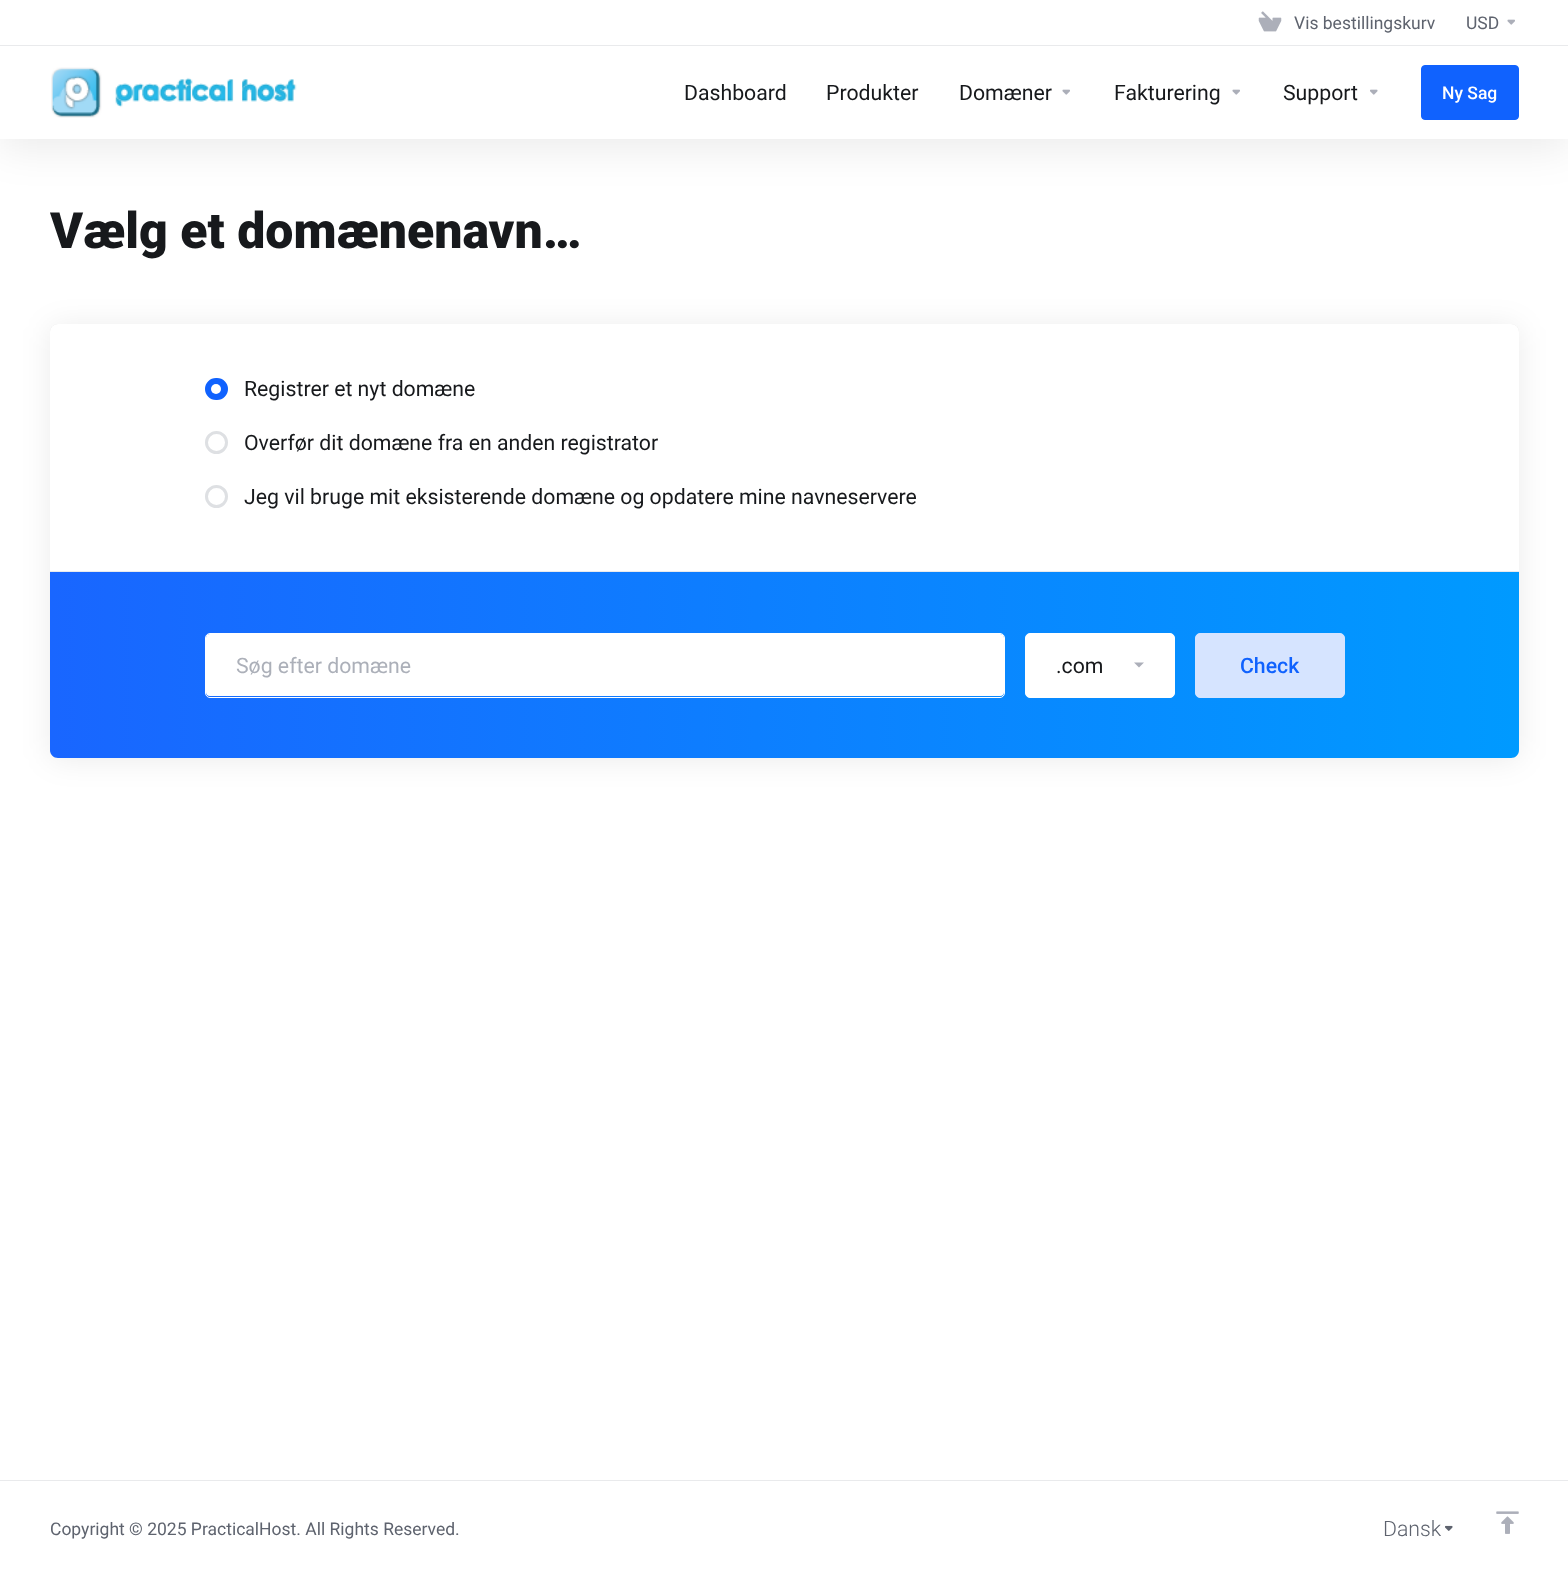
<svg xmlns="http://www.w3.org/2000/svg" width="1568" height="1576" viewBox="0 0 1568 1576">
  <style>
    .t1 { font: 17.5px Roboto; fill: #5e636e; }
    .t2 { font: 21.25px Roboto; fill: #17191c; }
    .t3 { font: 500 17.5px Roboto; fill: #fff; }
    .t4 { font: 900 50px Roboto; fill: #17191c; }
    .t5 { font: 21.25px Roboto; fill: #acb0b9; }
    .t6 { font: 500 21.25px Roboto; fill: #1062fe; }
    .t7 { font: 300 21.25px Roboto; fill: #5e636e; }
  </style>
  <defs>
    <linearGradient id="g1" gradientUnits="userSpaceOnUse" x1="50" y1="665" x2="1519" y2="665"><stop offset="0" stop-color="#1966ff"/><stop offset="1" stop-color="#009aff"/></linearGradient>
  </defs>
  <rect width="100%" height="100%" fill="#fff"/>
  <rect x="0" y="10" width="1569" height="139" fill="#00000014" filter="blur(20px)"/>
  <rect x="0" y="0" width="1568" height="139" fill="#fff"/>
  <rect x="0" y="45" width="1568" height="1" fill="#e9eaec"/>
  <image x="1258" y="11" width="24" height="21" href="images/1.png"/>
  <text x="1294" y="29" class="t1">Vis bestillingskurv</text>
  <text x="1466" y="29" class="t1">USD</text>
  <image x="1507" y="19" width="8" height="6" href="images/2.png"/>
  <image x="51" y="67" width="246" height="51" href="images/3.png"/>
  <text x="684" y="100" class="t2">Dashboard</text>
  <text x="826" y="100" class="t2">Produkter</text>
  <text x="959" y="100" class="t2">Domæner</text>
  <image x="1062" y="89" width="8" height="6" href="images/2.png"/>
  <text x="1114" y="100" class="t2">Fakturering</text>
  <image x="1232" y="89" width="8" height="6" href="images/2.png"/>
  <text x="1283" y="100" class="t2">Support</text>
  <image x="1370" y="89" width="8" height="6" href="images/4.png"/>
  <rect x="1421.5" y="65.5" width="97" height="54" rx="3.5" fill="#1062fe" stroke="#1062fe"/>
  <text x="1442" y="99" class="t3">Ny Sag</text>
  <text x="50" y="248" class="t4">Vælg et domænenavn…</text>
  <rect x="50" y="326" width="1469" height="434" rx="8" fill="#00000014" filter="blur(15px)"/>
  <rect x="50" y="324" width="1469" height="434" rx="8" fill="#0000001a" filter="blur(0.5px)"/>
  <rect x="50" y="324" width="1469" height="434" rx="8" fill="#fff"/>
  <rect x="206.5" y="379.5" width="20" height="19" rx="9.5" fill="#1062fe" stroke="#1062fe" stroke-width="3"/>
  <circle cx="216" cy="389" r="5" fill="#fff"/>
  <text x="244" y="396" class="t2">Registrer et nyt domæne</text>
  <circle cx="216.5" cy="442.5" r="10" fill="none" stroke="#dee0e3" stroke-width="3"/>
  <text x="244" y="450" class="t2">Overfør dit domæne fra en anden registrator</text>
  <circle cx="216.5" cy="496.5" r="10" fill="none" stroke="#dee0e3" stroke-width="3"/>
  <text x="244" y="504" class="t2">Jeg vil bruge mit eksisterende domæne og opdatere mine navneservere</text>
  <path d="M50 571H1519V750C1519 754.5 1515.5 758 1511 758H58C53.5 758 50 754.5 50 750Z" fill="url(#g1)"/>
  <rect x="50" y="571" width="1469" height="1" fill="#e9eaec"/>
  <rect x="206" y="634" width="798" height="62" rx="4" fill="#fff"/>
  <rect x="205.5" y="633.5" width="799" height="64" rx="4.5" fill="none" stroke="#fff"/>
  <text x="236" y="673" class="t5">Søg efter domæne</text>
  <rect x="1025.5" y="633.5" width="149" height="64" rx="4.5" fill="#fff" stroke="#fff"/>
  <text x="1056" y="673" class="t2">.com</text>
  <path d="M1134 662.5H1144L1139 667.5Z" fill="#acafb9"/>
  <rect x="1195.5" y="633.5" width="149" height="64" rx="4.5" fill="#d6e4ff" stroke="#d6e4ff"/>
  <text x="1240" y="673" class="t6">Check</text>
  <rect x="0" y="1480" width="1568" height="1" fill="#e9eaec"/>
  <text x="50" y="1535" class="t1">Copyright © 2025 PracticalHost. All Rights Reserved.</text>
  <text x="1383" y="1536" class="t7">Dansk</text>
  <image x="1445" y="1525" width="8" height="6" href="images/5.png"/>
  <image x="1496" y="1511" width="23" height="23" href="images/6.png"/>
</svg>
